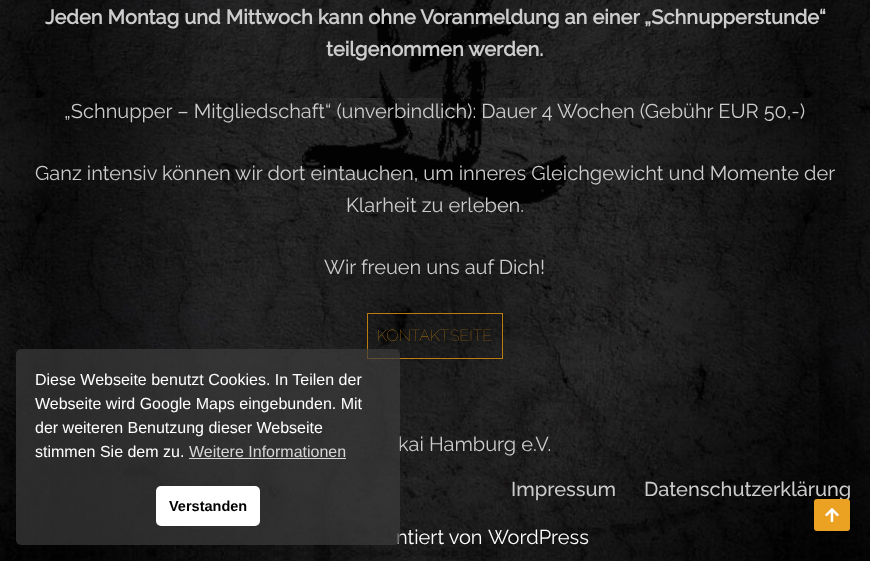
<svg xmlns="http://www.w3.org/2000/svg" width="870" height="561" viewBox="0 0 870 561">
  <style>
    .t1 { font: bold 20px Raleway; fill: #ccc; }
    .t2 { font: 20px Raleway; fill: #ccc; }
    .t3 { font: 100 16px Raleway; fill: #bc7d10; }
    .t4 { font: 500 20px Raleway; fill: #ccc; }
    .t5 { font: 20px Raleway; fill: #fff; }
    .t6 { font: 16px Liberation Sans; fill: #fff; }
    .t7 { font: 16px Liberation Sans; fill: #d7d7d7; }
    .t8 { font: bold 14.5px Liberation Sans; fill: #000; }
  </style>
  <rect width="100%" height="100%" fill="#fff"/>
  <image x="0" y="0" width="870" height="561" href="images/1.png"/>
  <image x="302" y="0" width="266" height="204" href="images/2.png"/>
  <image x="302" y="0" width="266" height="204" href="images/3.png"/>
  <text x="45" y="24" class="t1">Jeden Montag und Mittwoch kann ohne Voranmeldung an einer „Schnupperstunde“</text>
  <text x="326" y="56" class="t1">teilgenommen werden.</text>
  <text x="64" y="118" class="t2">„Schnupper – Mitgliedschaft“ (unverbindlich): Dauer 4 Wochen (Gebühr EUR 50,-)</text>
  <text x="35" y="180" class="t2">Ganz intensiv können wir dort eintauchen, um inneres Gleichgewicht und Momente der</text>
  <text x="346" y="212" class="t2">Klarheit zu erleben.</text>
  <text x="324" y="274" class="t2">Wir freuen uns auf Dich!</text>
  <rect x="367.5" y="313.5" width="135" height="45" fill="none" stroke="#bc7d10"/>
  <text x="377" y="341" class="t3">KONTAKTSEITE</text>
  <text x="398" y="451" class="t2">kai Hamburg e.V.</text>
  <text x="511" y="496" class="t4">Impressum</text>
  <text x="644" y="496" class="t4">Datenschutzerklärung</text>
  <text x="396" y="544" class="t5">ntiert von</text>
  <text x="488" y="544" class="t5">WordPress</text>
  <rect x="814" y="499" width="36" height="32" rx="3" fill="#eba121"/>
  <image x="825" y="508" width="14" height="14" href="images/4.png"/>
  <rect x="16" y="349" width="384" height="196" rx="5" fill="#3c3c3cb3"/>
  <text x="35" y="385" class="t6">Diese Webseite benutzt Cookies. In Teilen der</text>
  <text x="35" y="409" class="t6">Webseite wird Google Maps eingebunden. Mit</text>
  <text x="35" y="433" class="t6">der weiteren Benutzung dieser Webseite</text>
  <text x="35" y="457" class="t6">stimmen Sie dem zu.</text>
  <text x="189" y="457" class="t7">Weitere Informationen</text>
  <rect x="189" y="458" width="157" height="1" fill="#ffffffcc"/>
  <rect x="156" y="486" width="104" height="40" rx="5" fill="#fff"/>
  <text x="169" y="511" class="t8">Verstanden</text>
</svg>
